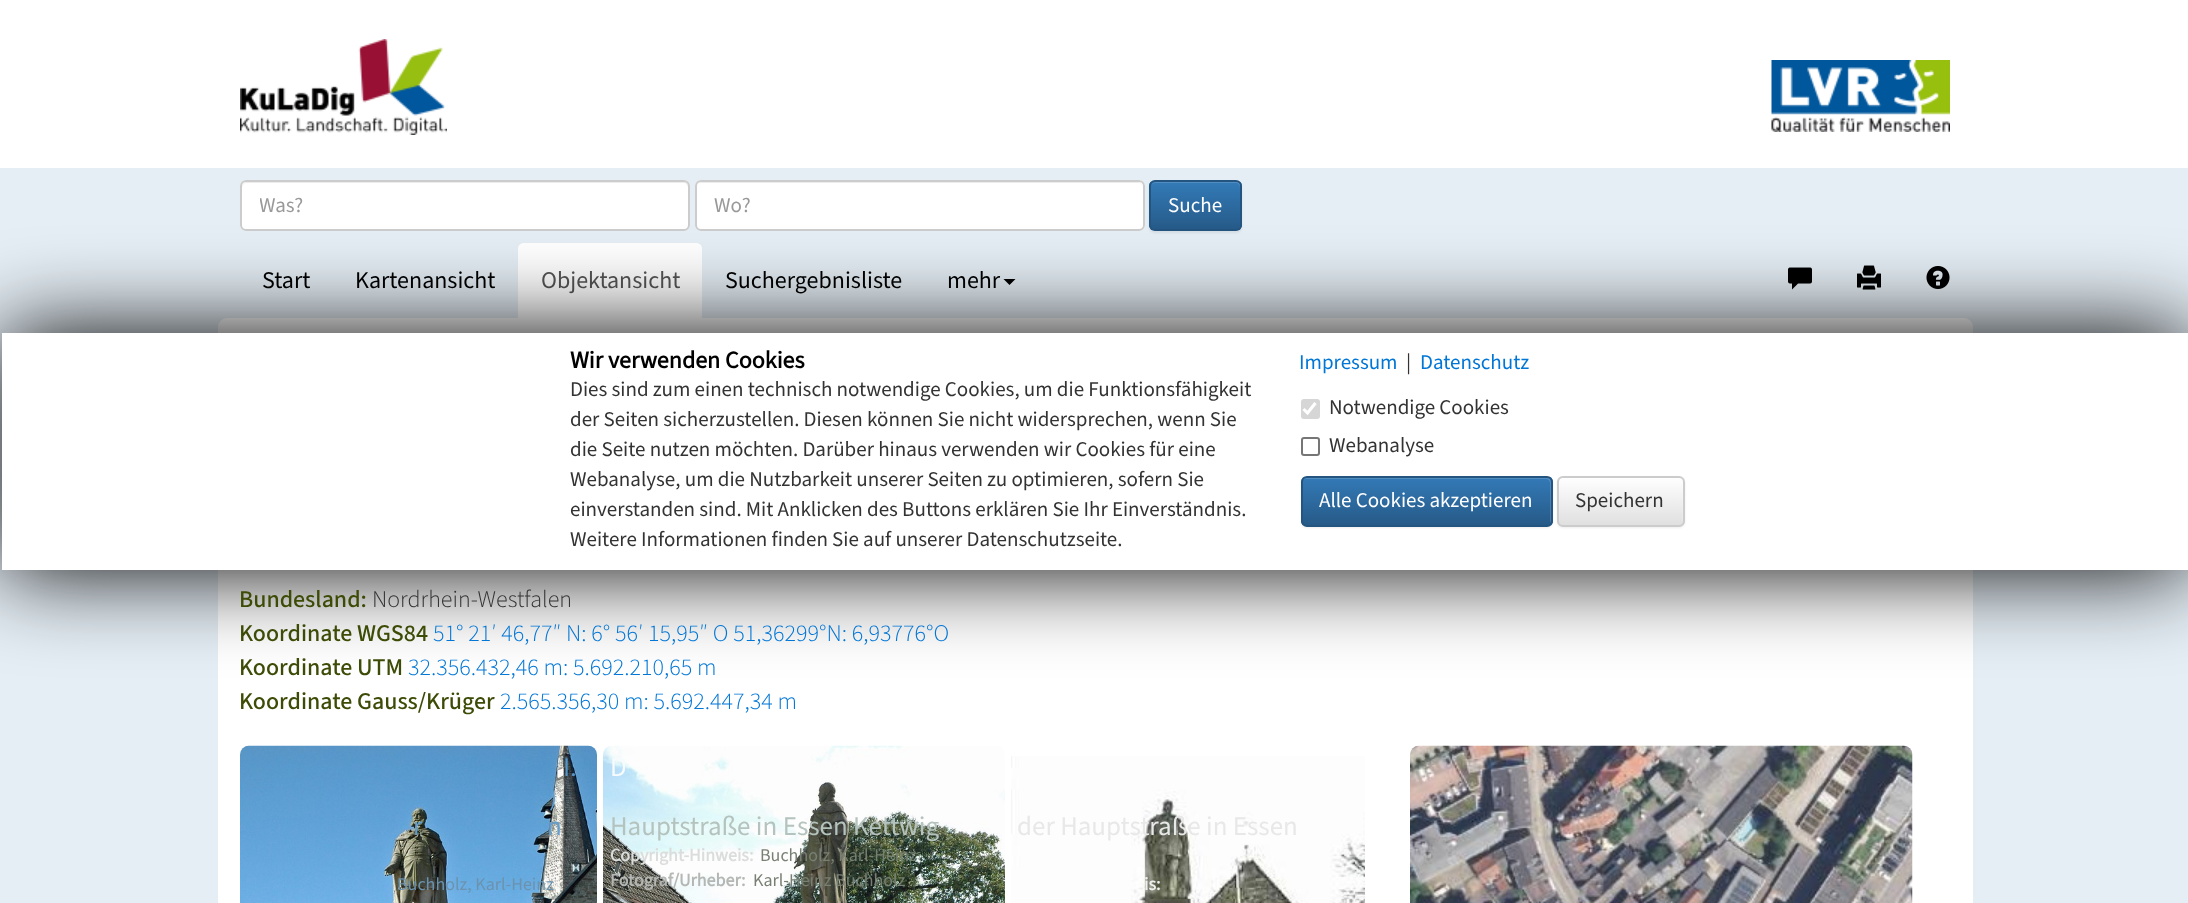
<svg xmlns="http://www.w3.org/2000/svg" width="2188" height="903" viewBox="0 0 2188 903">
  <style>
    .t1 { font: 21px 'Source Sans 3'; fill: #999; }
    .t2 { font: 21px 'Source Sans 3'; fill: #fff; }
    .t3 { font: 24px 'Source Sans 3'; fill: #000; }
    .t4 { font: 24px 'Source Sans 3'; fill: #555; }
    .t5 { font: bold 24px 'Source Sans 3'; fill: #000; }
    .t6 { font: 21px 'Source Sans 3'; fill: #333; }
    .t7 { font: 21px 'Source Sans 3'; fill: #0076d6; }
    .t8 { font: 500 24px 'Source Sans 3'; fill: #3c4b05; }
    .t9 { font: 300 24px 'Source Sans 3'; fill: #333; }
    .t10 { font: 300 24px 'Source Sans 3'; fill: #0076d6; }
    .t11 { font: 27px 'Source Sans 3'; fill: #5695c7; }
    .t12 { font: 27px 'Source Sans 3'; fill: #5c9cd0; }
    .t13 { font: 27px 'Source Sans 3'; fill: #649ecd; }
    .t14 { font: 18px 'Source Sans 3'; fill: #6b93af; }
    .t15 { font: 27px 'Source Sans 3'; fill: #f8fbfd; }
    .t16 { font: 27px 'Source Sans 3'; fill: #b5c3be; }
    .t17 { font: bold 18px 'Source Sans 3'; fill: #dadddb; }
    .t18 { font: 18px 'Source Sans 3'; fill: #788073; }
    .t19 { font: bold 18px 'Source Sans 3'; fill: #b4b7b4; }
    .t20 { font: 18px 'Source Sans 3'; fill: #45523e; }
    .t21 { font: 27px 'Source Sans 3'; fill: #e7e8e7; }
    .t22 { font: bold 18px 'Source Sans 3'; fill: #eff0ee; }
  </style>
  <defs>
    <clipPath id="clip1"><rect x="260" y="191" width="411" height="30"/></clipPath>
    <clipPath id="clip2"><rect x="1149" y="180" width="93" height="51" rx="6"/></clipPath>
    <linearGradient id="g1" gradientUnits="userSpaceOnUse" x1="1196" y1="182" x2="1196" y2="230"><stop offset="0" stop-color="#337ab7"/><stop offset="1" stop-color="#265a88"/></linearGradient>
    <clipPath id="clip3"><path d="M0 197H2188V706H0ZM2 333H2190V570H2Z" clip-rule="evenodd"/></clipPath>
    <clipPath id="clip4"><rect x="1301" y="476" width="252" height="51" rx="6"/></clipPath>
    <linearGradient id="g2" gradientUnits="userSpaceOnUse" x1="1426" y1="477" x2="1426" y2="525"><stop offset="0" stop-color="#337ab7"/><stop offset="1" stop-color="#265a88"/></linearGradient>
    <clipPath id="clip5"><rect x="1557" y="476" width="128" height="51" rx="6"/></clipPath>
    <linearGradient id="g3" gradientUnits="userSpaceOnUse" x1="1620" y1="477" x2="1620" y2="525"><stop offset="0" stop-color="#fff"/><stop offset="1" stop-color="#e0e0e0"/></linearGradient>
  </defs>
  <rect width="100%" height="100%" fill="#e5eef5"/>
  <rect x="0" y="0" width="2188" height="168" fill="#fff"/>
  <image x="240" y="39" width="207" height="96" href="images/1.png"/>
  <image x="1771" y="60" width="179" height="72" href="images/2.png"/>
  <rect x="240" y="180" width="450" height="51" rx="6" fill="#fff"/>
  <path d="M246 183H684C686 183 688 185 688 188V226L687 229C688 228 689 226 689 225V187C689 184 687 182 684 182H247C244 182 242 184 242 187V188C242 185 244 183 246 183Z" fill="#ececec"/>
  <rect x="241" y="181" width="448" height="49" rx="5" fill="none" stroke="#ccc" stroke-width="2"/>
  <g clip-path="url(#clip1)">
    <text x="259" y="212" class="t1">Was?</text>
  </g>
  <rect x="695" y="180" width="450" height="51" rx="6" fill="#fff"/>
  <path d="M700 183H1138C1141 183 1143 185 1143 188C1143 185 1141 182 1138 182H701C698 182 696 185 696 188C696 185 698 183 700 183Z" fill="#ececec"/>
  <rect x="696" y="181" width="448" height="49" rx="5" fill="none" stroke="#ccc" stroke-width="2"/>
  <text x="714" y="212" class="t1">Wo?</text>
  <rect x="1149" y="182" width="93" height="51" rx="6" fill="#00000012" filter="blur(1px)"/>
  <g clip-path="url(#clip2)">
    <rect x="1149" y="182" width="93" height="48" fill="url(#g1)"/>
  </g>
  <path d="M1155 183H1236C1238 183 1240 185 1240 188V226L1239 229C1240 228 1241 226 1241 225V187C1241 184 1239 182 1236 182H1156C1154 182 1153 183 1152 184Z" fill="#ffffff26"/>
  <rect x="1150" y="181" width="91" height="49" rx="5" fill="none" stroke="#245580" stroke-width="2"/>
  <text x="1168" y="212" class="t2">Suche</text>
  <text x="262" y="288" class="t3">Start</text>
  <text x="355" y="288" class="t3">Kartenansicht</text>
  <path d="M524 243H696C699.5 243 702 245.5 702 249V318H518V249C518 245.5 520.5 243 524 243Z" fill="#fff"/>
  <text x="541" y="288" class="t4">Objektansicht</text>
  <text x="725" y="288" class="t3">Suchergebnisliste</text>
  <text x="947" y="288" class="t3">mehr</text>
  <path d="M1003.5 279H1015.5L1009.5 285Z" fill="#000"/>
  <image x="1788" y="267" width="24" height="23" href="images/3.png"/>
  <image x="1857" y="265" width="24" height="25" href="images/4.png"/>
  <image x="1926" y="266" width="24" height="23" href="images/5.png"/>
  <rect x="218" y="318" width="1755" height="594" rx="9" fill="#fff"/>
  <g clip-path="url(#clip3)">
    <rect x="2" y="333" width="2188" height="237" fill="#000" filter="blur(45px)"/>
  </g>
  <rect x="2" y="333" width="2186" height="237" fill="#fff"/>
  <text x="570" y="368" class="t5">Wir verwenden Cookies</text>
  <text x="570" y="396" class="t6">Dies sind zum einen technisch notwendige Cookies, um die Funktionsfähigkeit</text>
  <text x="570" y="426" class="t6">der Seiten sicherzustellen. Diesen können Sie nicht widersprechen, wenn Sie</text>
  <text x="570" y="456" class="t6">die Seite nutzen möchten. Darüber hinaus verwenden wir Cookies für eine</text>
  <text x="570" y="486" class="t6">Webanalyse, um die Nutzbarkeit unserer Seiten zu optimieren, sofern Sie</text>
  <text x="570" y="516" class="t6">einverstanden sind. Mit Anklicken des Buttons erklären Sie Ihr Einverständnis.</text>
  <text x="570" y="546" class="t6">Weitere Informationen finden Sie auf unserer Datenschutzseite.</text>
  <text x="1299" y="369" class="t7">Impressum</text>
  <text x="1406" y="369" class="t6">|</text>
  <text x="1420" y="369" class="t7">Datenschutz</text>
  <rect x="1301" y="399" width="19" height="20" rx="3" fill="#d6d6d6"/>
  <path d="M1303.5 409L1307.5 413L1315.5 403" fill="none" stroke="#fff" stroke-width="3.1"/>
  <text x="1329" y="414" class="t6">Notwendige Cookies</text>
  <rect x="1302" y="438" width="17" height="17" rx="2" fill="none" stroke="#767676" stroke-width="2"/>
  <text x="1329" y="452" class="t6">Webanalyse</text>
  <rect x="1301" y="477" width="252" height="51" rx="6" fill="#00000012" filter="blur(1px)"/>
  <g clip-path="url(#clip4)">
    <rect x="1301" y="477" width="252" height="48" fill="url(#g2)"/>
  </g>
  <path d="M1306 479H1546C1548 479 1550 481 1550 483V523C1551 522 1551 521 1551 520V482C1551 479 1549 477 1546 477H1307C1305 477 1303 478 1302 480C1303 480 1304 479 1306 479Z" fill="#ffffff26"/>
  <rect x="1302" y="477" width="250" height="49" rx="5" fill="none" stroke="#245580" stroke-width="2"/>
  <text x="1319" y="507" class="t2">Alle Cookies akzeptieren</text>
  <rect x="1557" y="477" width="128" height="51" rx="6" fill="#00000012" filter="blur(1px)"/>
  <g clip-path="url(#clip5)">
    <rect x="1557" y="477" width="128" height="48" fill="url(#g3)"/>
  </g>
  <path d="M1562 479H1659C1684 479 1682 474 1682 496V523C1683 522 1683 521 1683 520V482C1683 479 1681 477 1678 477H1564C1562 477 1560 478 1559 480Z" fill="#ffffff26"/>
  <rect x="1558" y="477" width="126" height="49" rx="5" fill="none" stroke="#ccc" stroke-width="2"/>
  <text x="1575" y="507" class="t6">Speichern</text>
  <text x="239" y="607" class="t8">Bundesland:</text>
  <text x="372" y="607" class="t9">Nordrhein-Westfalen</text>
  <text x="239" y="641" class="t8">Koordinate WGS84</text>
  <text x="433" y="641" class="t10">51° 21′ 46,77″ N: 6° 56′ 15,95″ O 51,36299°N: 6,93776°O</text>
  <text x="239" y="675" class="t8">Koordinate UTM</text>
  <text x="408" y="675" class="t10">32.356.432,46 m: 5.692.210,65 m</text>
  <text x="239" y="709" class="t8">Koordinate Gauss/Krüger</text>
  <text x="500" y="709" class="t10">2.565.356,30 m: 5.692.447,34 m</text>
  <image x="240" y="745" width="357" height="158" href="images/6.png"/>
  <text x="563" y="776" class="t11">I.</text>
  <text x="549" y="806" class="t12">)</text>
  <text x="413" y="835" class="t13">r</text>
  <text x="547" y="835" class="t13">n</text>
  <text x="397" y="890" class="t14">Buchholz, Karl-Heinz</text>
  <image x="603" y="745" width="402" height="158" href="images/7.png"/>
  <text x="610" y="776" class="t15">D</text>
  <text x="610" y="835" class="t16">Hauptstraße in Essen Kettwig</text>
  <text x="610" y="861" class="t17">Copyright-Hinweis:</text>
  <text x="760" y="861" class="t18">Buchholz, Karl-Heinz</text>
  <text x="610" y="886" class="t19">Fotograf/Urheber:</text>
  <text x="753" y="886" class="t18">Karl-Heinz Buchholz</text>
  <text x="912" y="886" class="t20">|</text>
  <image x="1011" y="756" width="354" height="147" href="images/8.png"/>
  <text x="1017" y="835" class="t21">der Hauptstraße in Essen</text>
  <text x="1144" y="890" class="t22">is:</text>
  <image x="1410" y="745" width="503" height="158" href="images/9.png"/>
</svg>
